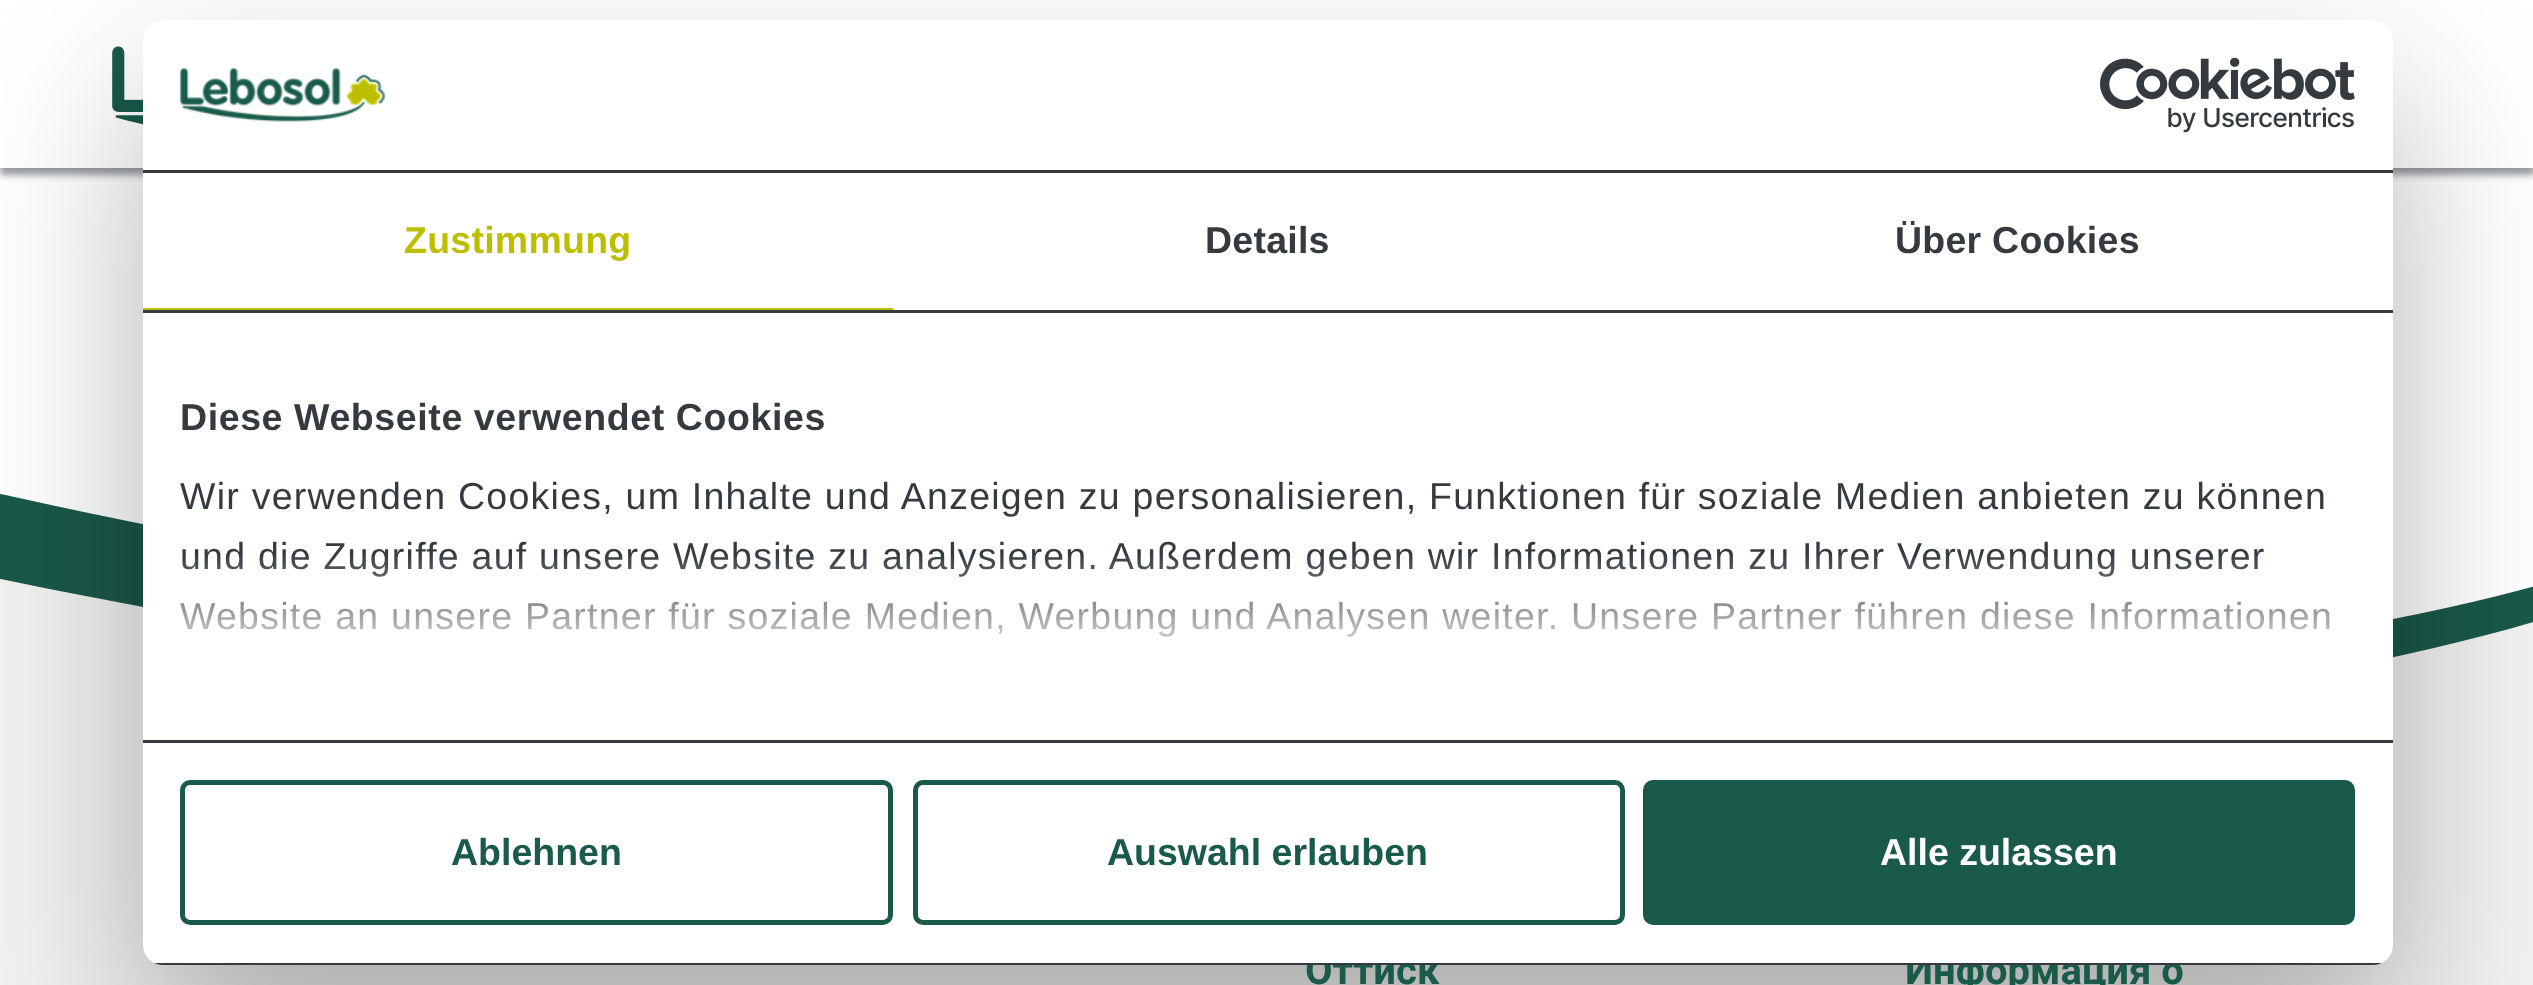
<svg xmlns="http://www.w3.org/2000/svg" width="2533" height="985" viewBox="0 0 2533 985">
  <style>
    .t1 { font: bold 40px Roboto; fill: #195a4b; }
    .t2 { font: bold 37.5px Liberation Sans; letter-spacing: 0.25px; fill: #bebe00; }
    .t3 { font: bold 37.5px Liberation Sans; letter-spacing: 0.25px; fill: #343a40; }
    .t4 { font: bold 37.5px Liberation Sans; letter-spacing: 0.6px; fill: #343a40; }
    .t5 { font: 37.5px Liberation Sans; letter-spacing: 1.25px; fill: #343a40; }
    .t6 { font: bold 37.5px Liberation Sans; fill: #195a4b; }
    .t7 { font: bold 37.5px Liberation Sans; fill: #fff; }
  </style>
  <defs>
    <linearGradient id="g1" gradientUnits="userSpaceOnUse" x1="1251" y1="740" x2="1251" y2="553"><stop offset="0" stop-color="#fff"/><stop offset="0.5" stop-color="#fff" stop-opacity="0.8"/><stop offset="1" stop-color="#fff" stop-opacity="0"/></linearGradient>
    <clipPath id="clip1"><rect x="143" y="20" width="2250" height="945" rx="20"/></clipPath>
  </defs>
  <rect width="100%" height="100%" fill="#fff"/>
  <rect x="0" y="8" width="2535" height="167" fill="#343a4080" filter="blur(3.5px)"/>
  <rect x="0" y="1" width="2533" height="167" fill="#fff"/>
  <image x="112" y="46" width="31" height="79" href="images/1.png"/>
  <image x="0" y="494" width="2533" height="236" href="images/4.png"/>
  <rect x="0" y="730" width="2533" height="255" fill="#f2f2f1"/>
  <rect x="143" y="100" width="2250" height="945" rx="20" fill="#0000004d" filter="blur(85px)"/>
  <text x="1305" y="984" class="t1">Оттиск</text>
  <text x="1905" y="984" class="t1">Информация о</text>
  <rect x="143" y="20" width="2250" height="945" rx="20" fill="#fff"/>
  <rect x="143" y="170" width="2250" height="3" fill="#343a40"/>
  <image x="180" y="67" width="205" height="56" href="images/2.png"/>
  <image x="2100" y="58" width="255" height="75" href="images/3.png"/>
  <rect x="143" y="310" width="2250" height="3" fill="#343a40"/>
  <rect x="143" y="308" width="750" height="2" fill="#bebe00"/>
  <text x="404" y="253" class="t2">Zustimmung</text>
  <text x="1205" y="253" class="t3">Details</text>
  <text x="1895" y="253" class="t3">Über Cookies</text>
  <rect x="143" y="740" width="2250" height="3" fill="#343a40"/>
  <text x="180" y="430" class="t4">Diese Webseite verwendet Cookies</text>
  <text x="180" y="509" class="t5">Wir verwenden Cookies, um Inhalte und Anzeigen zu personalisieren, Funktionen für soziale Medien anbieten zu können</text>
  <text x="180" y="569" class="t5">und die Zugriffe auf unsere Website zu analysieren. Außerdem geben wir Informationen zu Ihrer Verwendung unserer</text>
  <text x="180" y="629" class="t5">Website an unsere Partner für soziale Medien, Werbung und Analysen weiter. Unsere Partner führen diese Informationen</text>
  <rect x="180" y="556" width="2150" height="81" fill="url(#g1)"/>
  <g clip-path="url(#clip1)">
    <rect x="154" y="963" width="2228" height="2" fill="#343a40"/>
  </g>
  <rect x="182.5" y="782.5" width="708" height="140" rx="7.5" fill="none" stroke="#195a4b" stroke-width="5"/>
  <text x="451" y="865" class="t6">Ablehnen</text>
  <rect x="915.5" y="782.5" width="707" height="140" rx="7.5" fill="none" stroke="#195a4b" stroke-width="5"/>
  <text x="1107" y="865" class="t6">Auswahl erlauben</text>
  <rect x="1645.5" y="782.5" width="707" height="140" rx="7.5" fill="#195a4b" stroke="#195a4b" stroke-width="5"/>
  <text x="1880" y="865" class="t7">Alle zulassen</text>
</svg>
